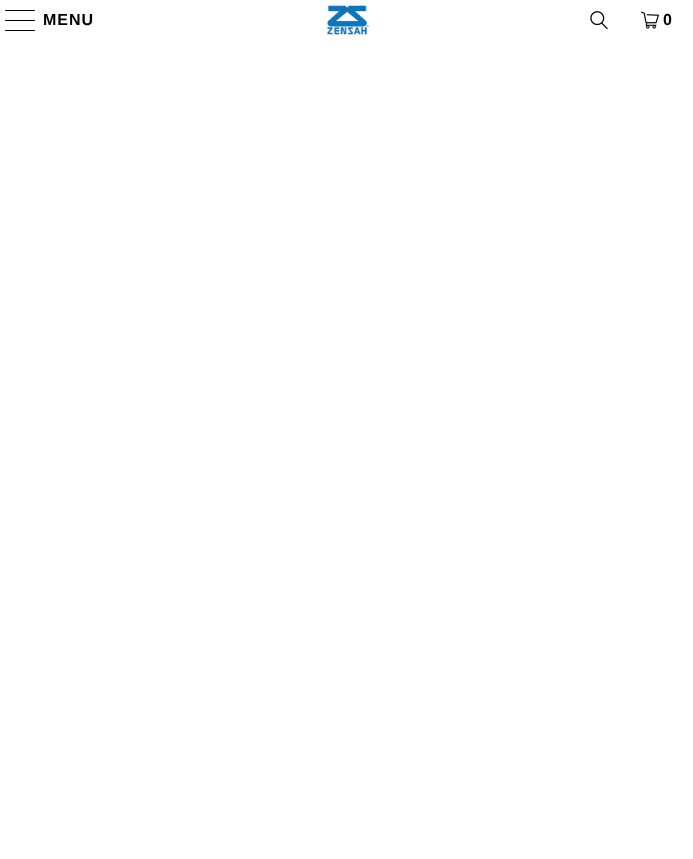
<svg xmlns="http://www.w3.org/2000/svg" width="693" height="859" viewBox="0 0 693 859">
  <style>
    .t1 { font: bold 16px Arimo; letter-spacing: 1px; fill: #000; }
  </style>
  <rect width="100%" height="100%" fill="#fff"/>
  <rect x="5" y="10" width="30" height="1" rx="0.5" fill="#000"/>
  <rect x="5" y="20" width="30" height="1" rx="0.5" fill="#000"/>
  <rect x="5" y="30" width="30" height="1" rx="0.5" fill="#000"/>
  <text x="43" y="25" class="t1">MENU</text>
  <image x="326" y="5" width="44" height="30" href="images/1.png"/>
  <image x="590" y="11" width="18" height="19" href="images/2.png"/>
  <image x="641" y="11" width="18" height="18" href="images/3.png"/>
  <text x="663" y="25" class="t1">0</text>
</svg>
